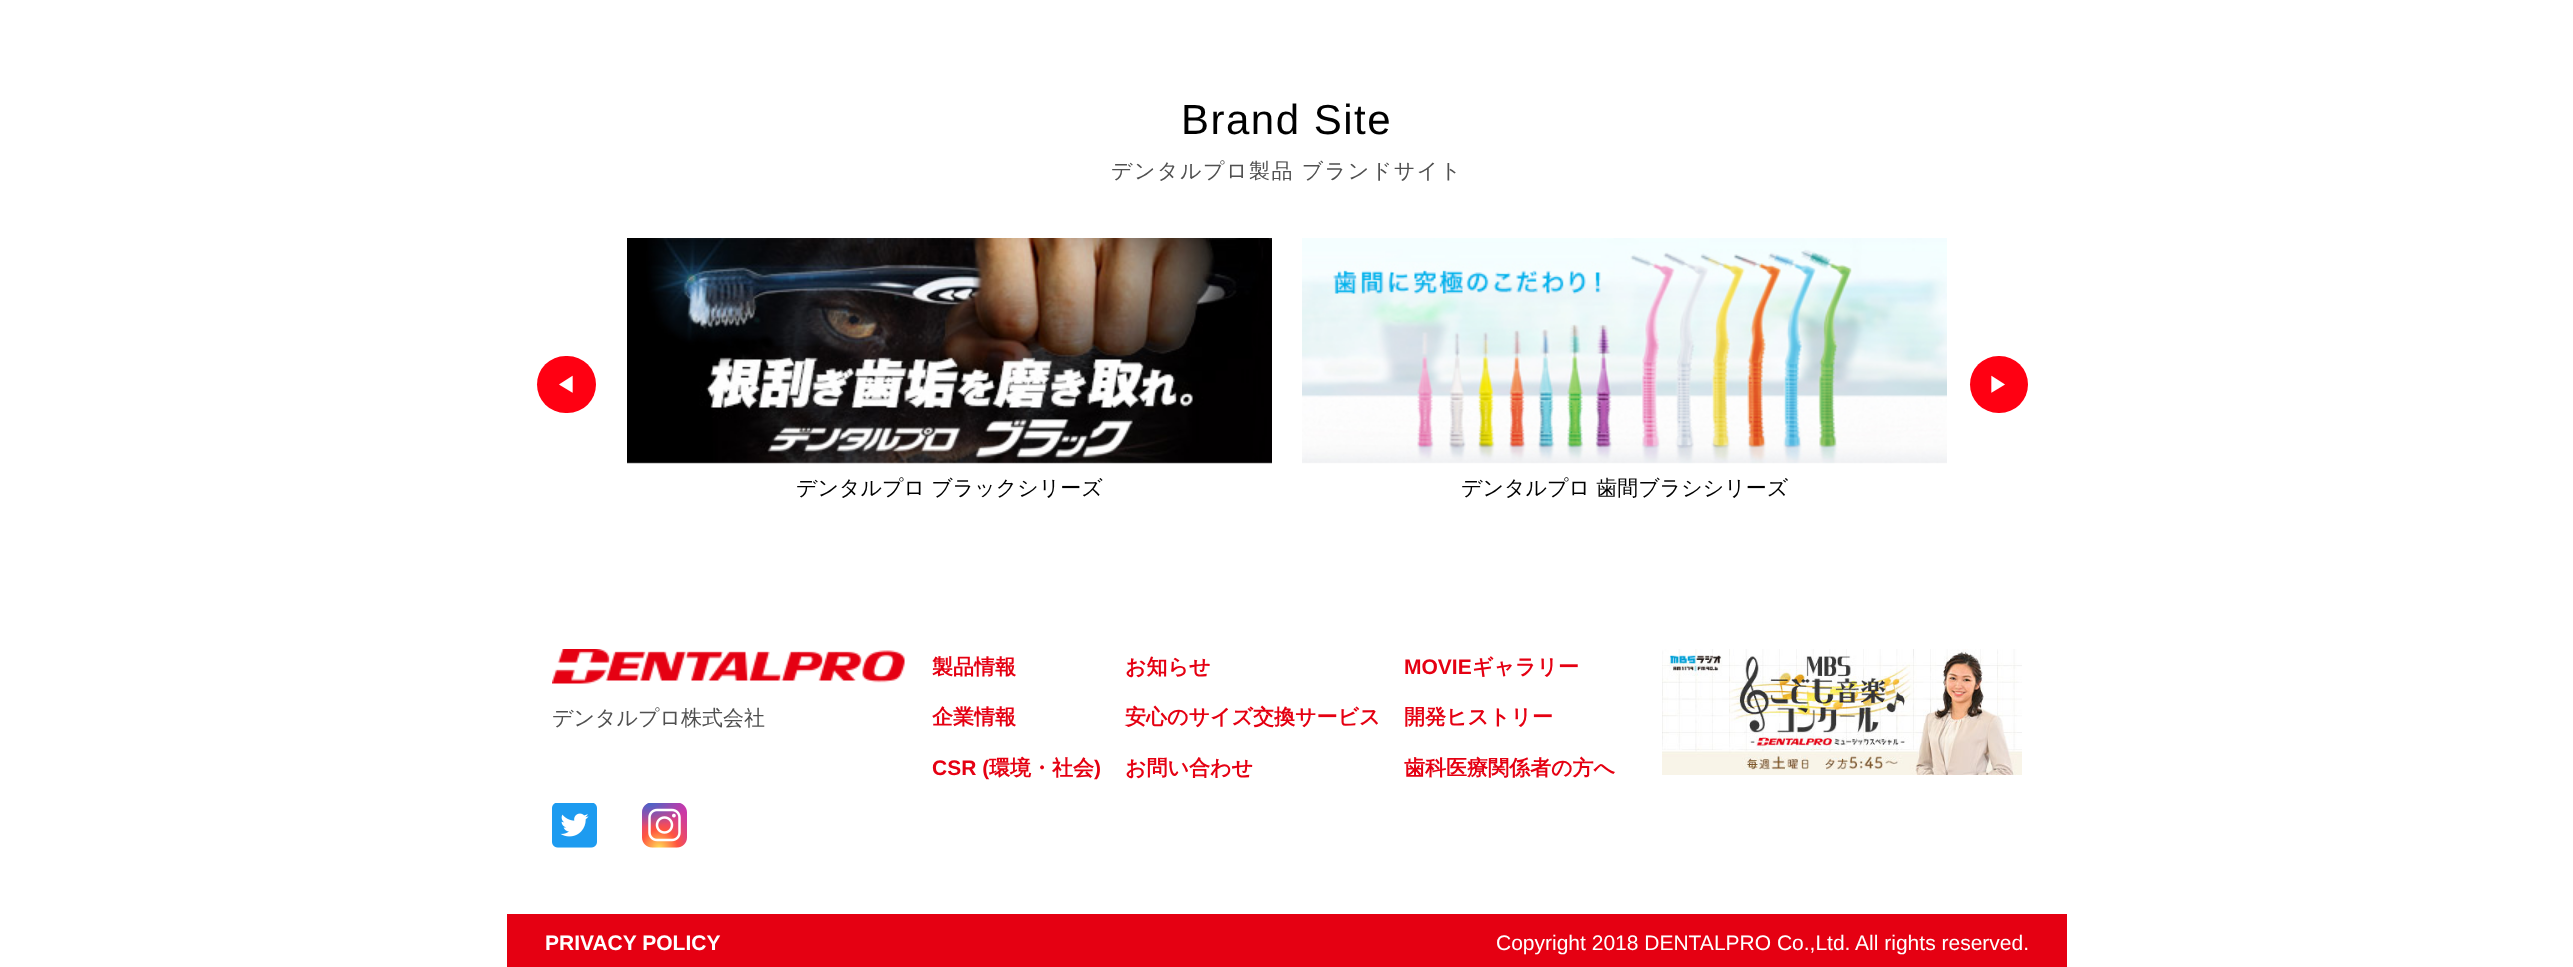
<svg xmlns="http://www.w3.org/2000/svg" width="2573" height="967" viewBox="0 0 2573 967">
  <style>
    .t1 { font: 42px Liberation Sans; letter-spacing: 1.5px; fill: #000; }
    .t2 { font: 500 21px WenQuanYi Zen Hei; letter-spacing: 1.5px; fill: #505050; }
    .t3 { font: 500 21px WenQuanYi Zen Hei; letter-spacing: 1px; fill: #fff; }
    .t4 { font: 500 21px WenQuanYi Zen Hei; fill: #000; }
    .t5 { font: 500 21px WenQuanYi Zen Hei; fill: #505050; }
    .t6 { font: bold 21px WenQuanYi Zen Hei; fill: #e50012; }
    .t7 { font: bold 21px Liberation Sans; fill: #e50012; }
    .t8 { font: bold 21px Liberation Sans; fill: #fff; }
    .t9 { font: 21px Liberation Sans; fill: #fff; }
  </style>
  <rect width="100%" height="100%" fill="#fff"/>
  <text x="1181" y="134" class="t1">Brand Site</text>
  <text x="1111" y="178" class="t2">デンタルプロ製品 ブランドサイト</text>
  <rect x="537" y="356" width="59" height="57" rx="28.5" fill="#ff0012"/>
  <text x="555" y="392" class="t3">◀︎</text>
  <rect x="1970" y="356" width="58" height="57" rx="28.5" fill="#ff0012"/>
  <text x="1988" y="392" class="t3">▶</text>
  <image x="627" y="238" width="645" height="226" href="images/1.png"/>
  <text x="796" y="495" class="t4">デンタルプロ ブラックシリーズ</text>
  <image x="1302" y="238" width="645" height="226" href="images/2.png"/>
  <text x="1461" y="495" class="t4">デンタルプロ 歯間ブラシシリーズ</text>
  <image x="552" y="649" width="353" height="35" href="images/3.png"/>
  <text x="552" y="725" class="t5">デンタルプロ株式会社</text>
  <text x="932" y="674" class="t6">製品情報</text>
  <text x="932" y="724" class="t6">企業情報</text>
  <text x="932" y="775" class="t7">CSR (</text>
  <text x="989" y="775" class="t6">環境・社会</text>
  <text x="1094" y="775" class="t7">)</text>
  <text x="1125" y="674" class="t6">お知らせ</text>
  <text x="1125" y="724" class="t6">安心のサイズ交換サービス</text>
  <text x="1125" y="775" class="t6">お問い合わせ</text>
  <text x="1404" y="674" class="t7">MOVIE</text>
  <text x="1472" y="674" class="t6">ギャラリー</text>
  <text x="1404" y="724" class="t6">開発ヒストリー</text>
  <text x="1404" y="775" class="t6">歯科医療関係者の方へ</text>
  <image x="1662" y="649" width="360" height="126" href="images/4.png"/>
  <image x="552" y="803" width="45" height="45" href="images/5.png"/>
  <image x="642" y="803" width="45" height="45" href="images/6.png"/>
  <rect x="507" y="914" width="1560" height="53" fill="#e50012"/>
  <text x="545" y="950" class="t8">PRIVACY POLICY</text>
  <text x="1496" y="950" class="t9">Copyright 2018 DENTALPRO Co.,Ltd. All rights reserved.</text>
</svg>
